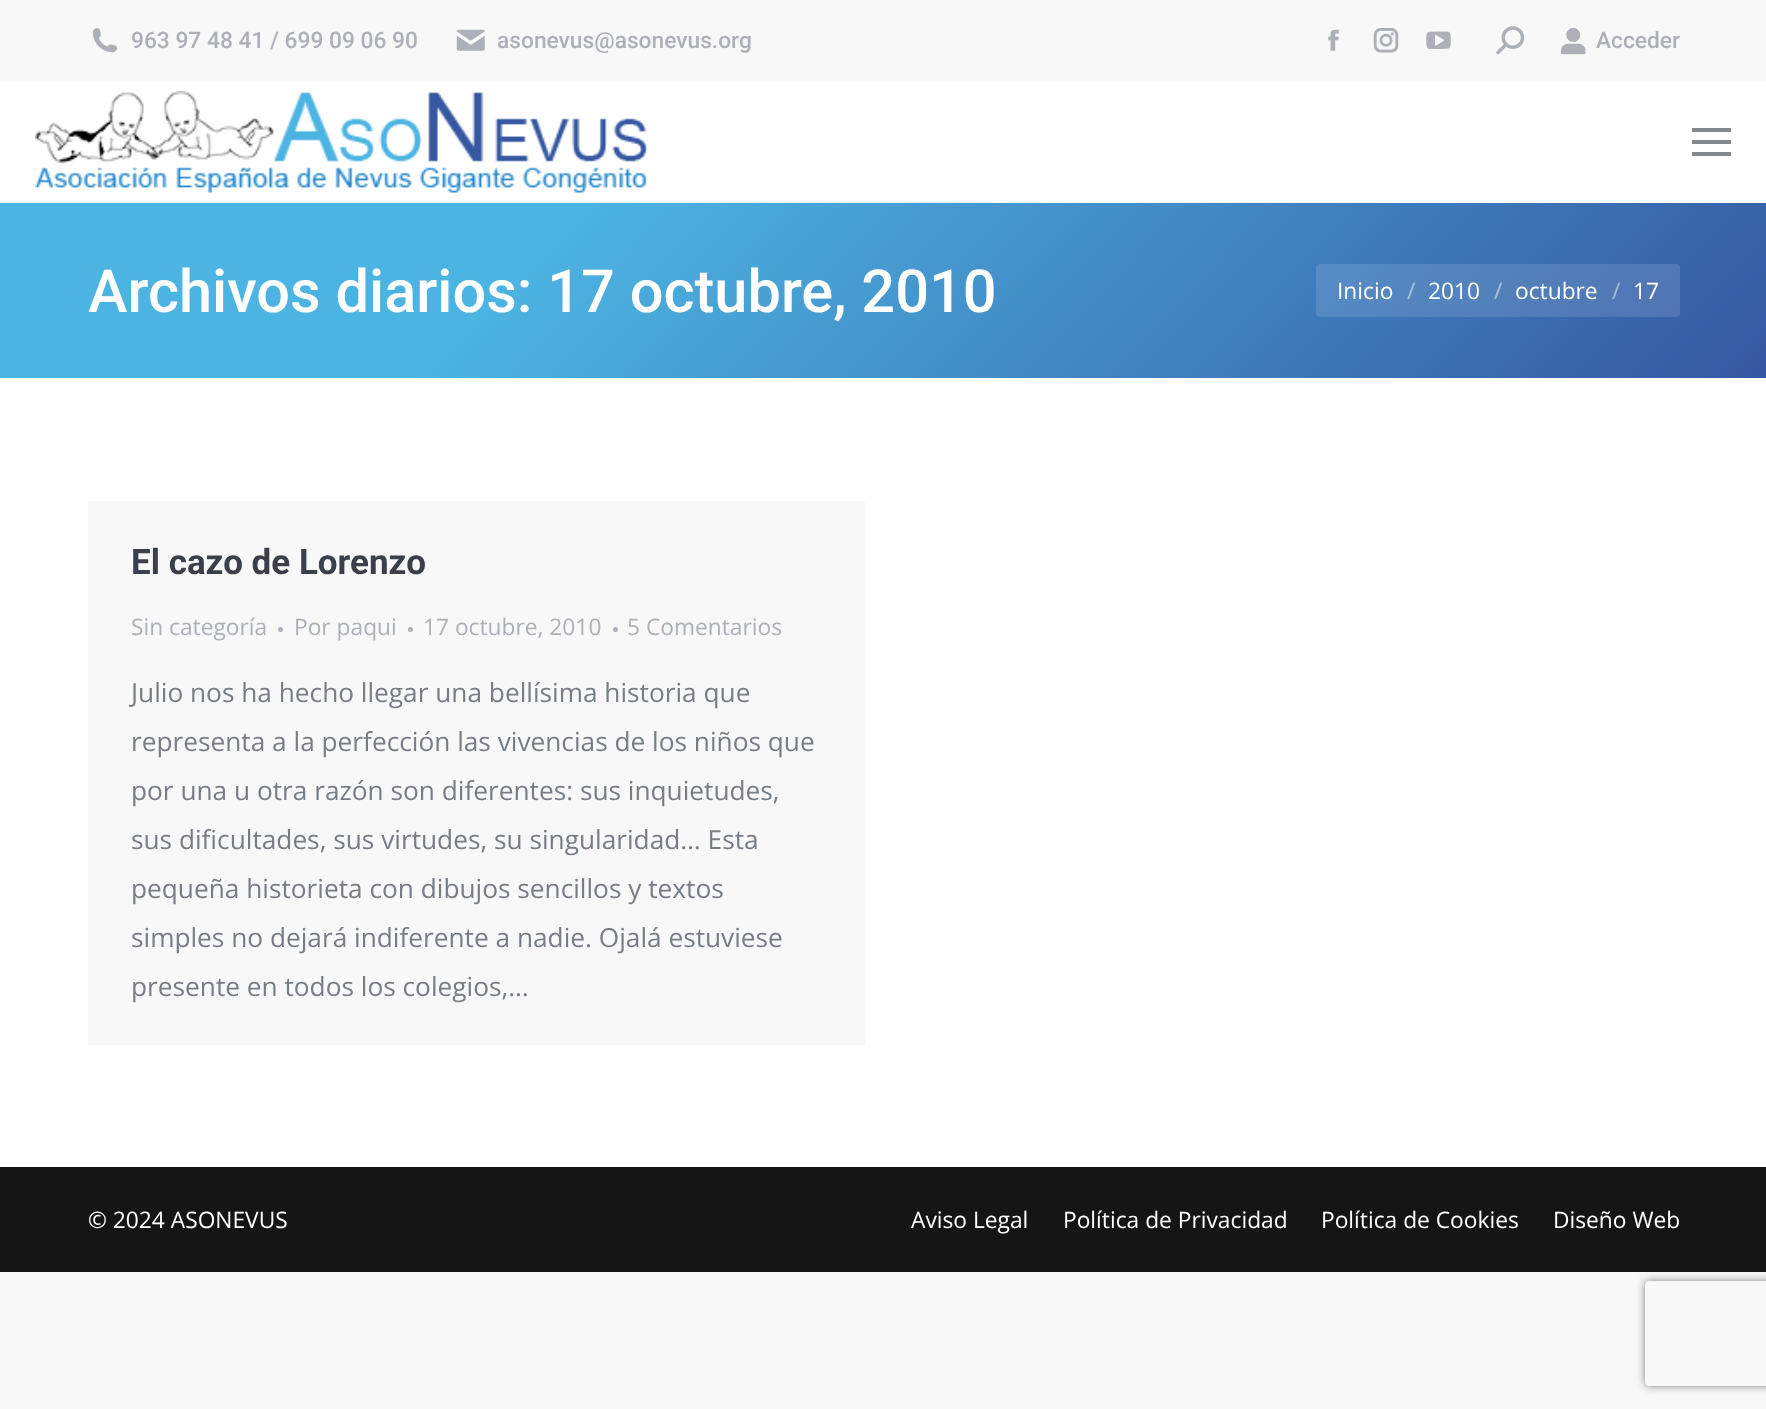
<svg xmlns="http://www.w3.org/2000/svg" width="1766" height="1409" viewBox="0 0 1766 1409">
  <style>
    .t1 { font: 500 22.75px Roboto; fill: #adb0b6; }
    .t2 { font: 500 59.5px Roboto; fill: #fff; }
    .t3 { font: 22.75px Open Sans; fill: #fff; }
    .t4 { font: 22.75px Open Sans; fill: #aac2df; }
    .t5 { font: 22.75px Open Sans; fill: #a8bcdb; }
    .t6 { font: bold 35px Roboto; fill: #3b3f4a; }
    .t7 { font: 22.75px Open Sans; fill: #adb0b6; }
    .t8 { font: 26.25px Open Sans; fill: #787d85; }
  </style>
  <defs>
    <linearGradient id="g1" gradientUnits="userSpaceOnUse" x1="398" y1="-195" x2="1369" y2="776"><stop offset="0.3" stop-color="#4cb4e3"/><stop offset="1" stop-color="#3657a1"/></linearGradient>
    <clipPath id="clip1"><path d="M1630 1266H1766V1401H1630ZM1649 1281H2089C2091 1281 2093 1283 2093 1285V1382C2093 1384 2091 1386 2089 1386H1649C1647 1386 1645 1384 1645 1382V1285C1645 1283 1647 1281 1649 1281Z" clip-rule="evenodd"/></clipPath>
  </defs>
  <rect width="100%" height="100%" fill="#f8f8f9"/>
  <rect x="0" y="81" width="1766" height="1086" fill="#fff"/>
  <image x="92" y="28" width="26" height="25" href="images/1.png"/>
  <text x="131" y="48" class="t1">963 97 48 41 / 699 09 06 90</text>
  <image x="456" y="29" width="29" height="22" href="images/2.png"/>
  <text x="497" y="48" class="t1">asonevus@asonevus.org</text>
  <image x="1328" y="29" width="11" height="22" href="images/3.png"/>
  <image x="1373" y="28" width="26" height="25" href="images/4.png"/>
  <image x="1426" y="31" width="25" height="18" href="images/5.png"/>
  <image x="1496" y="26" width="29" height="29" href="images/6.png"/>
  <image x="1561" y="28" width="25" height="27" href="images/7.png"/>
  <text x="1596" y="48" class="t1">Acceder</text>
  <image x="35" y="91" width="613" height="102" href="images/8.png"/>
  <rect x="1692" y="128" width="39" height="4" fill="#84878e"/>
  <rect x="1692" y="140" width="39" height="4" fill="#84878e"/>
  <rect x="1692" y="152" width="39" height="4" fill="#84878e"/>
  <rect x="0" y="203" width="1766" height="175" fill="url(#g1)"/>
  <text x="88" y="312" class="t2">Archivos diarios: 17 octubre, 2010</text>
  <rect x="1316" y="264" width="364" height="53" rx="4" fill="#ffffff1f"/>
  <text x="1337" y="299" class="t3">Inicio</text>
  <text x="1407" y="299" class="t4">/</text>
  <text x="1428" y="299" class="t3">2010</text>
  <text x="1494" y="299" class="t4">/</text>
  <text x="1515" y="299" class="t3">octubre</text>
  <text x="1612" y="299" class="t5">/</text>
  <text x="1633" y="299" class="t3">17</text>
  <rect x="88" y="501" width="777" height="544" fill="#f8f8f9"/>
  <text x="131" y="574" class="t6">El cazo de Lorenzo</text>
  <text x="131" y="635" class="t7">Sin categoría</text>
  <circle cx="280.5" cy="629.5" r="2.5" fill="#adb0b6"/>
  <text x="294" y="635" class="t7">Por paqui</text>
  <circle cx="410.5" cy="629.5" r="2.5" fill="#adb0b6"/>
  <text x="423" y="635" class="t7">17 octubre, 2010</text>
  <circle cx="615.5" cy="629.5" r="2.5" fill="#adb0b6"/>
  <text x="627" y="635" class="t7">5 Comentarios</text>
  <text x="131" y="702" class="t8">Julio nos ha hecho llegar una bellísima historia que</text>
  <text x="131" y="751" class="t8">representa a la perfección las vivencias de los niños que</text>
  <text x="131" y="800" class="t8">por una u otra razón son diferentes: sus inquietudes,</text>
  <text x="131" y="849" class="t8">sus dificultades, sus virtudes, su singularidad… Esta</text>
  <text x="131" y="898" class="t8">pequeña historieta con dibujos sencillos y textos</text>
  <text x="131" y="947" class="t8">simples no dejará indiferente a nadie. Ojalá estuviese</text>
  <text x="131" y="996" class="t8">presente en todos los colegios,…</text>
  <g clip-path="url(#clip1)">
    <rect x="1645" y="1281" width="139" height="105" rx="4" fill="#808080" filter="blur(4.5px)"/>
  </g>
  <rect x="0" y="1167" width="1766" height="105" fill="#151515"/>
  <text x="88" y="1228" class="t3">© 2024 ASONEVUS</text>
  <text x="911" y="1228" class="t3">Aviso Legal</text>
  <text x="1063" y="1228" class="t3">Política de Privacidad</text>
  <text x="1321" y="1228" class="t3">Política de Cookies</text>
  <text x="1553" y="1228" class="t3">Diseño Web</text>
</svg>
